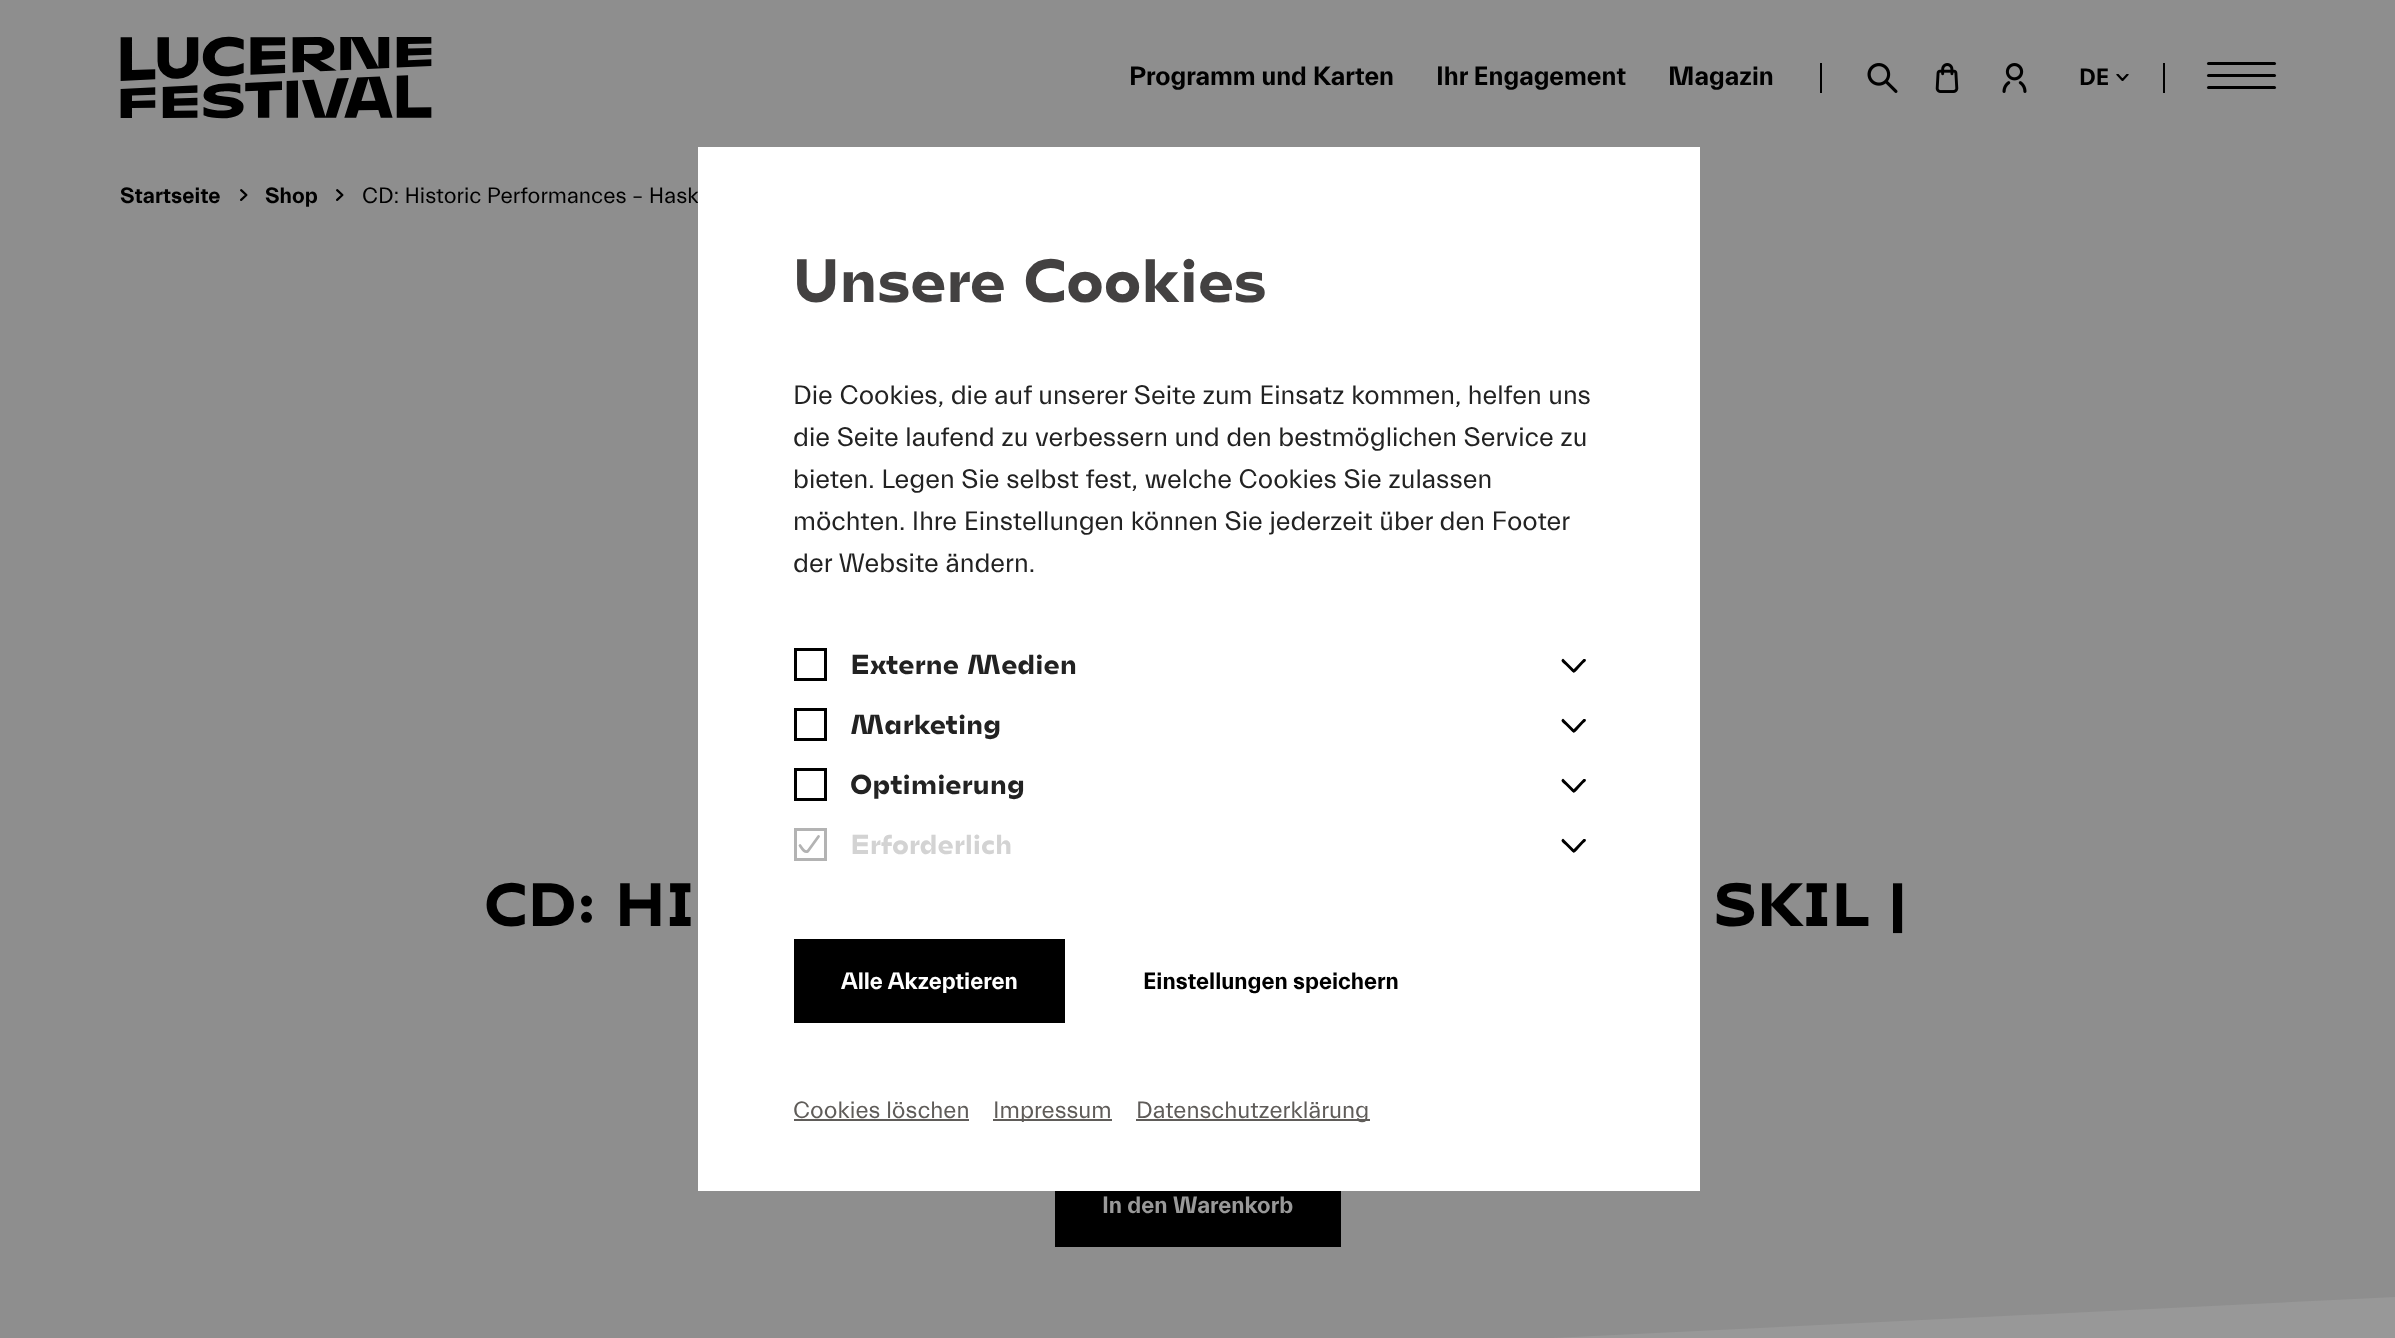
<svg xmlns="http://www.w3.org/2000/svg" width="2395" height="1338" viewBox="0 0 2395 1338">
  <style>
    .t1 { font: bold 27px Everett; fill: #000; }
    .t2 { font: bold 24px Everett; fill: #000; }
    .t3 { font: bold 22.5px Everett; fill: #000; }
    .t4 { font: 22.5px Everett; fill: #000; }
    .t5 { font: bold 60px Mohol; fill: #000; }
    .t6 { font: bold 24px Everett; fill: #999; }
    .t7 { font: bold 60px Mohol; fill: #434141; }
    .t8 { font: 27px Everett; fill: #222; }
    .t9 { font: bold 27px Mohol; fill: #222; }
    .t10 { font: bold 27px Mohol; fill: #d3d3d3; }
    .t11 { font: bold 24px Everett; fill: #fff; }
    .t12 { font: 24px Everett; fill: #5f5c59; }
  </style>
  <defs>
    <clipPath id="clip1"><rect x="2115" y="74" width="14" height="7"/></clipPath>
  </defs>
  <rect width="100%" height="100%" fill="#989898"/>
  <rect x="0" y="0" width="2395" height="1294" fill="#8e8e8e"/>
  <image x="120" y="36" width="312" height="83" href="images/1.png"/>
  <text x="1129" y="85" class="t1">Programm und Karten</text>
  <text x="1436" y="85" class="t1">Ihr Engagement</text>
  <text x="1668" y="85" class="t1">Magazin</text>
  <rect x="1820" y="63" width="2" height="30" fill="#000"/>
  <image x="1867" y="63" width="31" height="30" href="images/2.png"/>
  <image x="1935" y="63" width="24" height="30" href="images/3.png"/>
  <image x="2002" y="63" width="25" height="30" href="images/4.png"/>
  <text x="2079" y="85" class="t2">DE</text>
  <g clip-path="url(#clip1)">
    <path d="M2127.5 74.5L2122.5 80L2117.5 74.5" fill="none" stroke="#000" stroke-width="2.2" stroke-linecap="round" stroke-linejoin="round"/>
  </g>
  <rect x="2163" y="63" width="2" height="30" fill="#000"/>
  <rect x="2207" y="62" width="69" height="3" rx="1.5" fill="#000"/>
  <rect x="2207" y="74" width="69" height="3" rx="1.5" fill="#000"/>
  <rect x="2207" y="86" width="69" height="3" rx="1.5" fill="#000"/>
  <text x="120" y="203" class="t3">Startseite</text>
  <image x="240" y="189" width="8" height="12" href="images/5.png"/>
  <text x="265" y="203" class="t3">Shop</text>
  <image x="336" y="189" width="8" height="12" href="images/5.png"/>
  <text x="362" y="203" class="t4">CD: Historic Performances – Hask</text>
  <text x="484" y="926" class="t5">CD: HI</text>
  <text x="1714" y="926" class="t5">SKIL |</text>
  <rect x="1055" y="1191" width="286" height="56" fill="#000"/>
  <text x="1102" y="1213" class="t6">In den Warenkorb</text>
  <path d="M0 1294V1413H8L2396 1297V1294Z" fill="#8e8e8e"/>
  <rect x="698" y="147" width="1002" height="1044" fill="#fff"/>
  <text x="793" y="302" class="t7">Unsere Cookies</text>
  <text x="793" y="404" class="t8">Die Cookies, die auf unserer Seite zum Einsatz kommen, helfen uns</text>
  <text x="793" y="446" class="t8">die Seite laufend zu verbessern und den bestmöglichen Service zu</text>
  <text x="793" y="488" class="t8">bieten. Legen Sie selbst fest, welche Cookies Sie zulassen</text>
  <text x="793" y="530" class="t8">möchten. Ihre Einstellungen können Sie jederzeit über den Footer</text>
  <text x="793" y="572" class="t8">der Website ändern.</text>
  <rect x="795.5" y="649.5" width="30" height="30" fill="none" stroke="#000" stroke-width="3"/>
  <text x="850" y="674" class="t9">Externe Medien</text>
  <path d="M1564 659.5L1574.5 670L1575 671.5C1574 674 1571.5 671 1570.5 670L1565.5 665C1564.5 664 1560 661 1562 659.5C1562.5 658.5 1563.5 658.5 1564 659.5Z" fill="#000"/>
  <path d="M1573 670L1583.5 659H1585C1587.5 660 1584.5 662.5 1583.5 663L1578.5 668.5C1577.5 669.5 1574.5 674 1573 672C1572 671.5 1572 670.5 1573 670Z" fill="#000"/>
  <rect x="795.5" y="709.5" width="30" height="30" fill="none" stroke="#000" stroke-width="3"/>
  <text x="850" y="734" class="t9">Marketing</text>
  <path d="M1564 719.5L1574.5 730L1575 731.5C1574 734 1571.5 731 1570.5 730L1565.5 725C1564.5 724 1560 721 1562 719.5C1562.5 718.5 1563.5 718.5 1564 719.5Z" fill="#000"/>
  <path d="M1573 730L1583.5 719H1585C1587.5 720 1584.5 722.5 1583.5 723L1578.5 728.5C1577.5 729.5 1574.5 734 1573 732C1572 731.5 1572 730.5 1573 730Z" fill="#000"/>
  <rect x="795.5" y="769.5" width="30" height="30" fill="none" stroke="#000" stroke-width="3"/>
  <text x="850" y="794" class="t9">Optimierung</text>
  <path d="M1564 779.5L1574.5 790L1575 791.5C1574 794 1571.5 791 1570.5 790L1565.5 785C1564.5 784 1560 781 1562 779.5C1562.5 778.5 1563.5 778.5 1564 779.5Z" fill="#000"/>
  <path d="M1573 790L1583.5 779H1585C1587.5 780 1584.5 782.5 1583.5 783L1578.5 788.5C1577.5 789.5 1574.5 794 1573 792C1572 791.5 1572 790.5 1573 790Z" fill="#000"/>
  <rect x="795.5" y="829.5" width="30" height="30" fill="none" stroke="#b3b3b3" stroke-width="3"/>
  <path d="M800 845.5C801.5 847.5 804.5 853.5 808 851L818.5 836.5" fill="none" stroke="#b3b3b3" stroke-width="2.8" stroke-linecap="round" stroke-linejoin="round"/>
  <text x="850" y="854" class="t10">Erforderlich</text>
  <path d="M1564 839.5L1574.5 850L1575 851.5C1574 854 1571.5 851 1570.5 850L1565.5 845C1564.5 844 1560 841 1562 839.5C1562.5 838.5 1563.5 838.5 1564 839.5Z" fill="#000"/>
  <path d="M1573 850L1583.5 839H1585C1587.5 840 1584.5 842.5 1583.5 843L1578.5 848.5C1577.5 849.5 1574.5 854 1573 852C1572 851.5 1572 850.5 1573 850Z" fill="#000"/>
  <rect x="794" y="939" width="271" height="84" fill="#000"/>
  <text x="841" y="989" class="t11">Alle Akzeptieren</text>
  <text x="1143" y="989" class="t2">Einstellungen speichern</text>
  <text x="793" y="1118" class="t12">Cookies löschen</text>
  <rect x="794" y="1119" width="175" height="2" fill="#5f5c59"/>
  <rect x="993" y="1119" width="119" height="2" fill="#5f5c59"/>
  <text x="993" y="1118" class="t12">Impressum</text>
  <rect x="1136" y="1119" width="234" height="2" fill="#5f5c59"/>
  <text x="1136" y="1118" class="t12">Datenschutzerklärung</text>
</svg>
